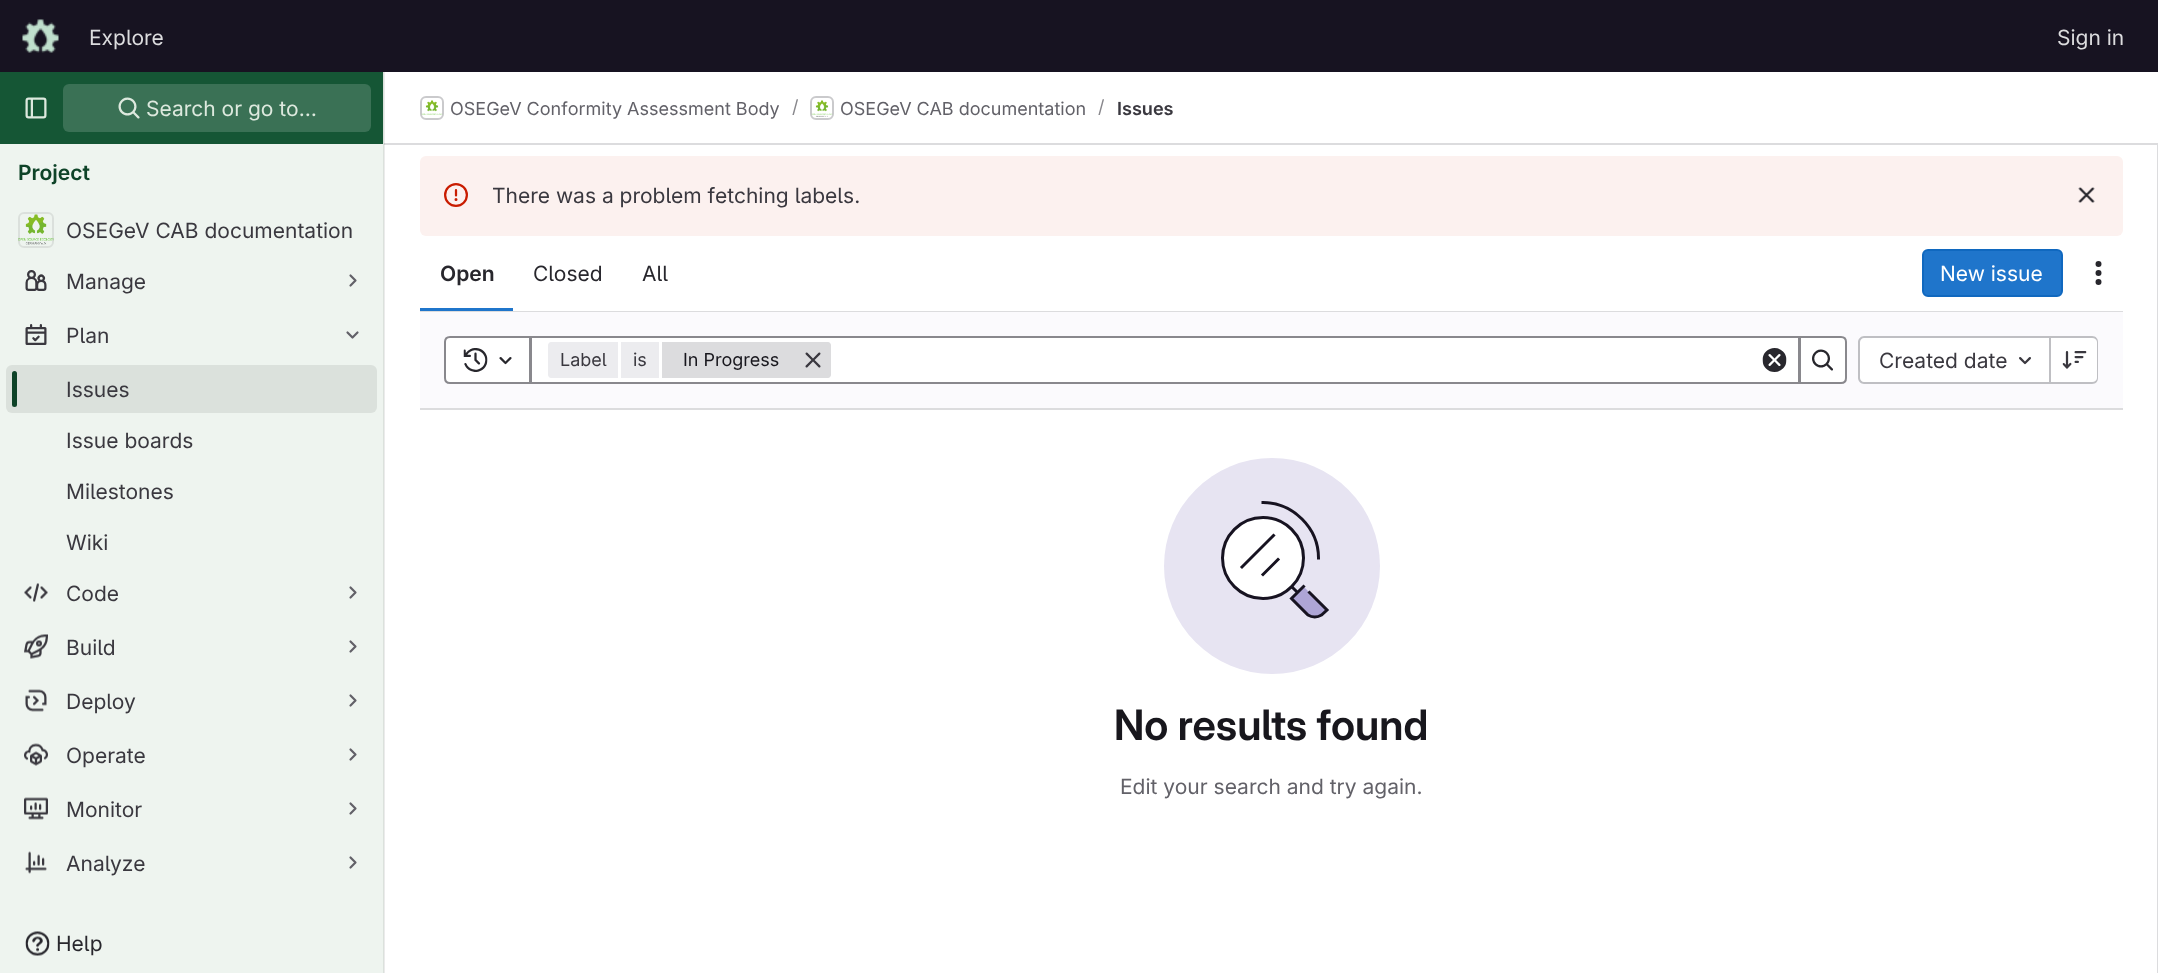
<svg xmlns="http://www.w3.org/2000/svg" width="2158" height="973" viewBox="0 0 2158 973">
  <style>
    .t1 { font: 21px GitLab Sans; fill: #dcdcde; }
    .t2 { font: 21px GitLab Sans; fill: #dde9de; }
    .t3 { font: 600 21px 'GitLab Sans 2'; fill: #0e4328; }
    .t4 { font: 21px GitLab Sans; fill: #3a383f; }
    .t5 { font: 21px GitLab Sans; fill: #28272d; }
    .t6 { font: 18px GitLab Sans; fill: #626168; }
    .t7 { font: 18px GitLab Sans; fill: #89888d; }
    .t8 { font: 600 18px 'GitLab Sans 2'; fill: #3a383f; }
    .t9 { font: 600 21px 'GitLab Sans 2'; fill: #28272d; }
    .t10 { font: 21px GitLab Sans; fill: #fff; }
    .t11 { font: 18px GitLab Sans; fill: #3a383f; }
    .t12 { font: 18px GitLab Sans; fill: #18171d; }
    .t13 { font: 600 42px GitLab Sans; fill: #18171d; }
    .t14 { font: 21px GitLab Sans; fill: #626168; }
  </style>
  <rect width="100%" height="100%" fill="#fff"/>
  <rect x="384" y="72" width="1" height="901" fill="#ebebeb"/>
  <rect x="0" y="0" width="2158" height="72" fill="#171321"/>
  <image x="22" y="19" width="37" height="34" href="images/1.png"/>
  <text x="89" y="45" class="t1">Explore</text>
  <text x="2057" y="45" class="t1">Sign in</text>
  <rect x="0" y="144" width="383" height="829" fill="#eef4ef"/>
  <rect x="383" y="72" width="1" height="901" fill="#dbe1dc"/>
  <rect x="0" y="72" width="383" height="72" fill="#155635"/>
  <image x="25" y="97" width="22" height="22" href="images/2.png"/>
  <rect x="63" y="84" width="308" height="48" rx="6" fill="#3a7155"/>
  <image x="118" y="97" width="22" height="22" href="images/3.png"/>
  <text x="146" y="116" class="t2">Search or go to…</text>
  <text x="18" y="180" class="t3">Project</text>
  <image x="18" y="214" width="36" height="31" href="images/4.png"/>
  <rect x="19" y="213" width="34" height="34" rx="5" fill="none" stroke="#05050614" stroke-width="2"/>
  <text x="66" y="238" class="t4">OSEGeV CAB documentation</text>
  <image x="25" y="270" width="22" height="21" href="images/5.png"/>
  <text x="66" y="289" class="t4">Manage</text>
  <path d="M350.5 275.5L355.5 280.5L350.5 285.5" fill="none" stroke="#626168" stroke-width="2.2" stroke-linecap="round" stroke-linejoin="round"/>
  <image x="25" y="324" width="22" height="21" href="images/6.png"/>
  <text x="66" y="343" class="t4">Plan</text>
  <path d="M357.5 332.5L352.5 337.5L347.5 332.5" fill="none" stroke="#626168" stroke-width="2.2" stroke-linecap="round" stroke-linejoin="round"/>
  <rect x="6" y="365" width="371" height="48" rx="6" fill="#dbe1dc"/>
  <rect x="12" y="371" width="5" height="36" rx="2.5" fill="#0e4328"/>
  <text x="66" y="397" class="t4">Issues</text>
  <text x="66" y="448" class="t4">Issue boards</text>
  <text x="66" y="499" class="t4">Milestones</text>
  <text x="66" y="550" class="t4">Wiki</text>
  <image x="24" y="583" width="24" height="19" href="images/7.png"/>
  <text x="66" y="601" class="t4">Code</text>
  <path d="M350.5 587.5L355.5 592.5L350.5 597.5" fill="none" stroke="#626168" stroke-width="2.2" stroke-linecap="round" stroke-linejoin="round"/>
  <image x="24" y="634" width="24" height="25" href="images/8.png"/>
  <text x="66" y="655" class="t4">Build</text>
  <path d="M350.5 641.5L355.5 646.5L350.5 651.5" fill="none" stroke="#626168" stroke-width="2.2" stroke-linecap="round" stroke-linejoin="round"/>
  <image x="25" y="689" width="22" height="23" href="images/9.png"/>
  <text x="66" y="709" class="t4">Deploy</text>
  <path d="M350.5 695.5L355.5 700.5L350.5 705.5" fill="none" stroke="#626168" stroke-width="2.2" stroke-linecap="round" stroke-linejoin="round"/>
  <image x="24" y="743" width="24" height="23" href="images/10.png"/>
  <text x="66" y="763" class="t4">Operate</text>
  <path d="M350.5 749.5L355.5 754.5L350.5 759.5" fill="none" stroke="#626168" stroke-width="2.2" stroke-linecap="round" stroke-linejoin="round"/>
  <image x="24" y="797" width="24" height="23" href="images/11.png"/>
  <text x="66" y="817" class="t4">Monitor</text>
  <path d="M350.5 803.5L355.5 808.5L350.5 813.5" fill="none" stroke="#626168" stroke-width="2.2" stroke-linecap="round" stroke-linejoin="round"/>
  <image x="25" y="851" width="22" height="23" href="images/12.png"/>
  <text x="66" y="871" class="t4">Analyze</text>
  <path d="M350.5 857.5L355.5 862.5L350.5 867.5" fill="none" stroke="#626168" stroke-width="2.2" stroke-linecap="round" stroke-linejoin="round"/>
  <image x="25" y="931" width="25" height="25" href="images/13.png"/>
  <text x="56" y="951" class="t5">Help</text>
  <rect x="2157" y="144" width="1" height="829" fill="#dcdcde"/>
  <rect x="384" y="143" width="1774" height="2" fill="#dcdcde"/>
  <rect x="384" y="143" width="1" height="2" fill="#cbcbcd"/>
  <rect x="421" y="97" width="22" height="22" rx="5" fill="none" stroke="#dcdcde" stroke-width="2"/>
  <image x="421" y="100" width="22" height="15" href="images/14.png"/>
  <rect x="421" y="97" width="22" height="22" rx="5" fill="none" stroke="#05050614" stroke-width="2"/>
  <text x="450" y="115" class="t6">OSEGeV Conformity Assessment Body</text>
  <text x="792" y="113" class="t7">/</text>
  <rect x="811" y="97" width="22" height="22" rx="5" fill="none" stroke="#dcdcde" stroke-width="2"/>
  <image x="811" y="100" width="22" height="17" href="images/15.png"/>
  <rect x="811" y="97" width="22" height="22" rx="5" fill="none" stroke="#05050614" stroke-width="2"/>
  <text x="840" y="115" class="t6">OSEGeV CAB documentation</text>
  <text x="1098" y="113" class="t7">/</text>
  <text x="1117" y="115" class="t8">Issues</text>
  <rect x="420" y="156" width="1703" height="80" rx="6" fill="#fcf1ef"/>
  <image x="444" y="183" width="24" height="24" href="images/16.png"/>
  <text x="492" y="203" class="t4">There was a problem fetching labels.</text>
  <image x="2078" y="187" width="17" height="16" href="images/17.png"/>
  <rect x="420" y="311" width="1703" height="1" fill="#dcdcde"/>
  <text x="440" y="281" class="t9">Open</text>
  <rect x="420" y="308" width="93" height="3" fill="#1f75cb"/>
  <text x="533" y="281" class="t5">Closed</text>
  <text x="642" y="281" class="t5">All</text>
  <rect x="1923" y="250" width="139" height="46" rx="5" fill="#1f75cb" stroke="#1068bf" stroke-width="2"/>
  <text x="1940" y="281" class="t10">New issue</text>
  <image x="2095" y="261" width="7" height="24" href="images/18.png"/>
  <rect x="420" y="312" width="1703" height="96" fill="#fbfafd"/>
  <rect x="420" y="408" width="1703" height="2" fill="#dcdcde"/>
  <rect x="531" y="337" width="1268" height="46" fill="#fff" stroke="#89888d" stroke-width="2"/>
  <path d="M450 337H530V383H450C447 383 445 381 445 378V342C445 339 447 337 450 337Z" fill="#fff" stroke="#89888d" stroke-width="2"/>
  <image x="463" y="348" width="25" height="24" href="images/19.png"/>
  <image x="499" y="357" width="13" height="8" href="images/20.png"/>
  <path d="M551 342H618V378H551C549.5 378 548 376.5 548 375V345C548 343.5 549.5 342 551 342Z" fill="#ececef"/>
  <text x="560" y="366" class="t11">Label</text>
  <rect x="621" y="342" width="38" height="36" fill="#ececef"/>
  <text x="633" y="366" class="t11">is</text>
  <path d="M662 342H828C829.5 342 831 343.5 831 345V375C831 376.5 829.5 378 828 378H662Z" fill="#dcdcde"/>
  <text x="683" y="366" class="t12">In Progress</text>
  <image x="805" y="352" width="16" height="16" href="images/21.png"/>
  <image x="1762" y="348" width="25" height="24" href="images/22.png"/>
  <path d="M1800 337H1841C1844 337 1846 339 1846 342V378C1846 381 1844 383 1841 383H1800Z" fill="#fff" stroke="#89888d" stroke-width="2"/>
  <image x="1812" y="349" width="21" height="22" href="images/23.png"/>
  <path d="M1865 338H2049V383H1865C1862 383 1860 381 1860 378V343C1860 340 1862 338 1865 338Z" fill="#fff"/>
  <path d="M1864 336H2049V384H1864C1861 384 1858 381 1858 378V342C1858 339 1861 336 1864 336ZM1864 338H2049V382H1864C1862 382 1860 380 1860 378V342C1860 340 1862 338 1864 338Z" fill="#bfbfc3" fill-rule="evenodd"/>
  <text x="1879" y="368" class="t4">Created date</text>
  <image x="2019" y="357" width="12" height="8" href="images/24.png"/>
  <path d="M2051 338H2092C2095 338 2097 340 2097 343V378C2097 381 2095 383 2092 383H2051Z" fill="#fff"/>
  <path d="M2050 336H2092C2096 336 2098 339 2098 342V378C2098 381 2096 384 2092 384H2050ZM2050 338H2092C2095 338 2097 340 2097 342V378C2097 380 2095 382 2092 382H2050Z" fill="#bfbfc3" fill-rule="evenodd"/>
  <rect x="2049" y="336" width="2" height="48" fill="#bfbfc3"/>
  <image x="2062" y="351" width="25" height="18" href="images/25.png"/>
  <circle cx="1272" cy="566" r="108" fill="#e7e4f2"/>
  <path d="M1303.5 586.5L1291.5 598.5L1308 615C1312 617.5 1317.5 617.5 1321.5 615L1327 610Z" fill="#aea5d6"/>
  <path d="M1303.5 586.5L1291.5 598.5L1308 615C1312 617.5 1317.5 617.5 1321.5 615L1327 610L1309.5 592.5M1291.5 586.5L1296 591" fill="none" stroke="#171321" stroke-width="3" stroke-linecap="square"/>
  <circle cx="1263" cy="558" r="40.5" fill="#fff" stroke="#171321" stroke-width="3"/>
  <path d="M1263 574.5L1278 559.5M1242 567L1273.5 535.5M1318.5 558C1318.5 528 1293 502.5 1263 502.5" fill="none" stroke="#171321" stroke-width="3" stroke-linecap="square"/>
  <text x="1114" y="740" class="t13">No results found</text>
  <text x="1120" y="794" class="t14">Edit your search and try again.</text>
</svg>
